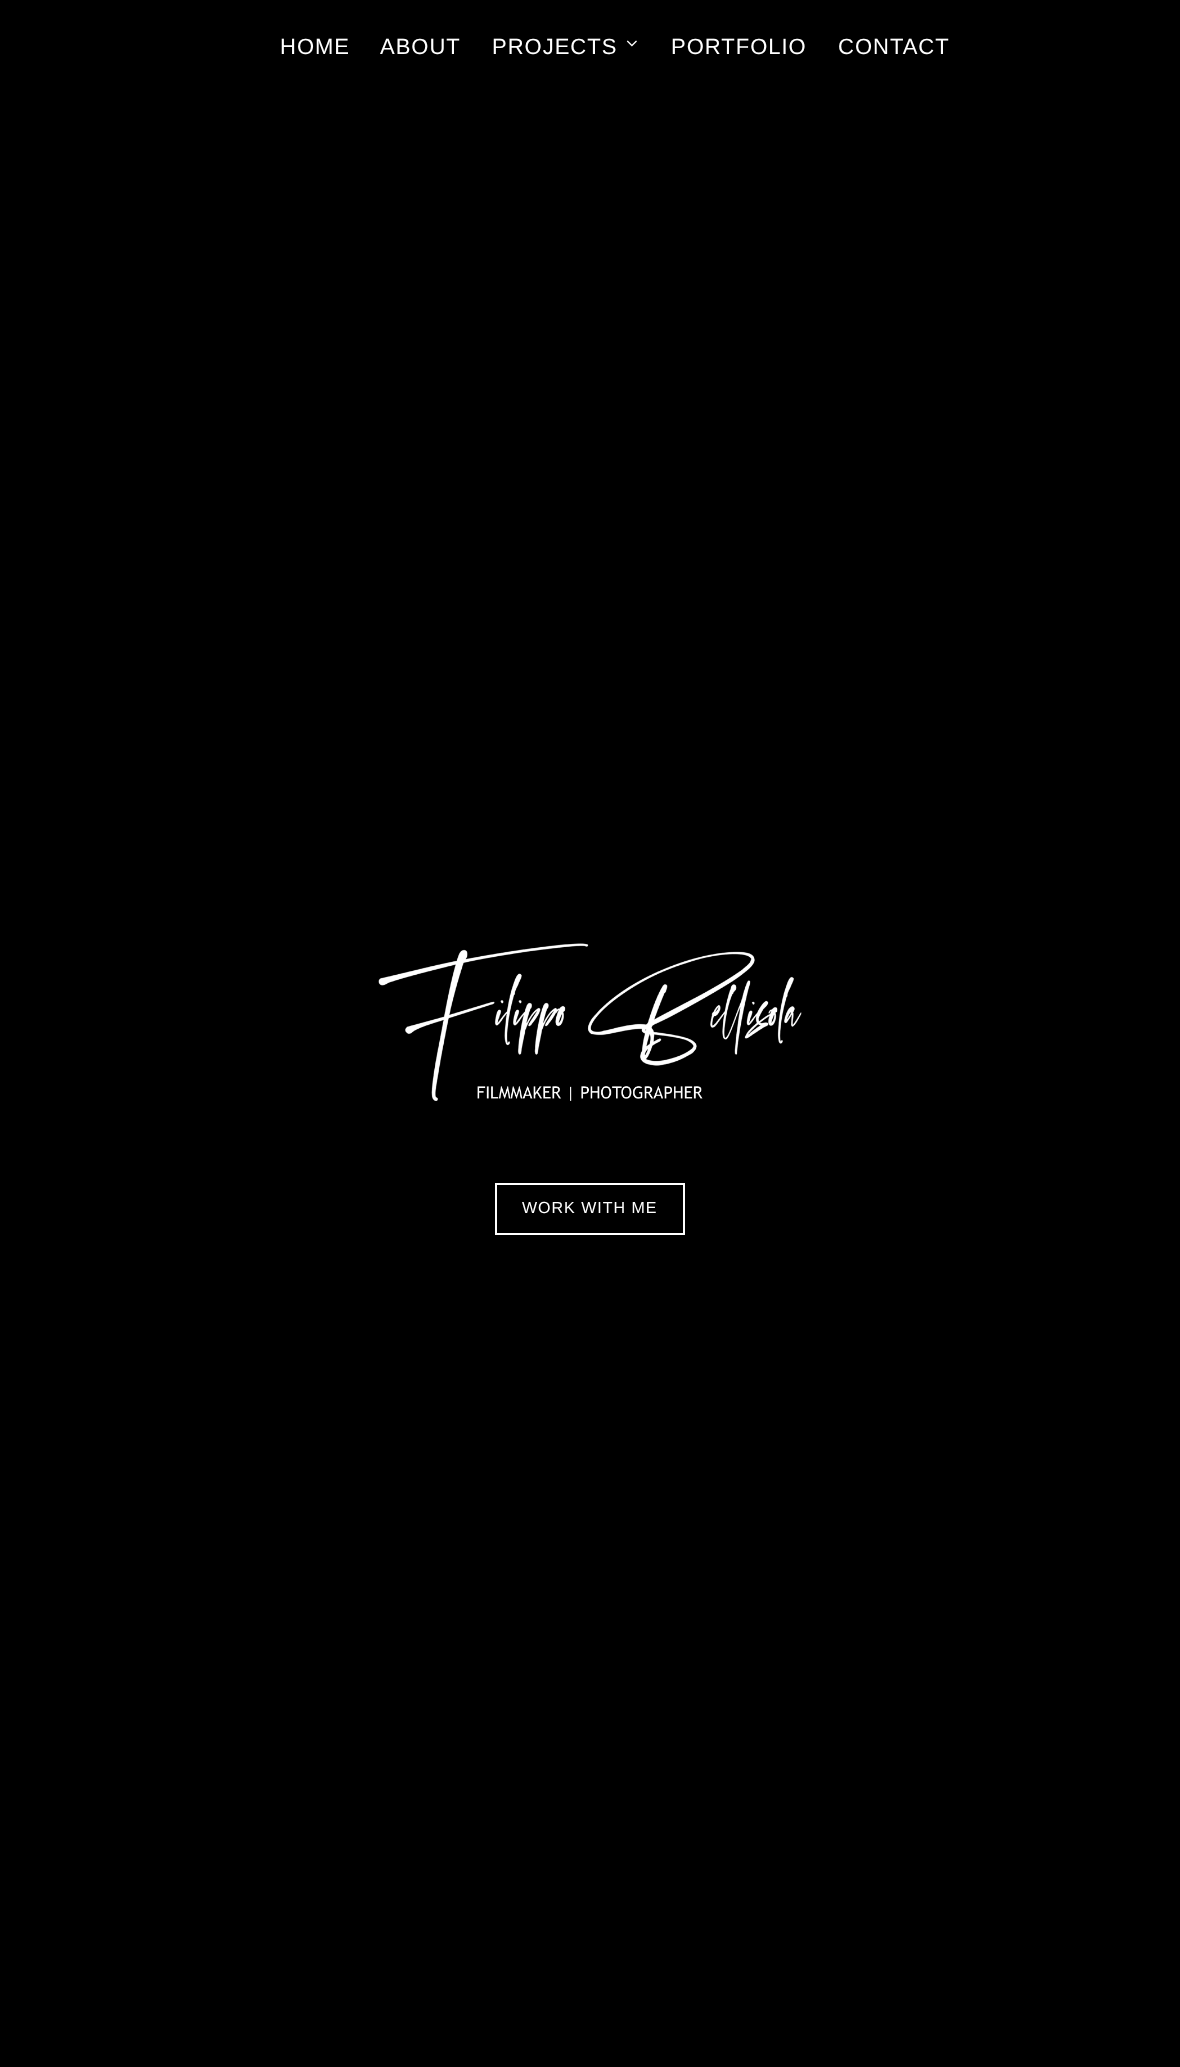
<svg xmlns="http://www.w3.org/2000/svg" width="1180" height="2067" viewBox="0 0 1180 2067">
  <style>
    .t1 { font: 22px Liberation Sans; letter-spacing: 1px; fill: #fff; }
    .t2 { font: 16px Liberation Sans; letter-spacing: 1px; fill: #fff; }
  </style>
  <rect width="100%" height="100%" fill="#000"/>
  <text x="280" y="54" class="t1">HOME</text>
  <text x="380" y="54" class="t1">ABOUT</text>
  <text x="492" y="54" class="t1">PROJECTS</text>
  <image x="626" y="40" width="11" height="7" href="images/1.png"/>
  <text x="671" y="54" class="t1">PORTFOLIO</text>
  <text x="838" y="54" class="t1">CONTACT</text>
  <image x="378" y="943" width="424" height="158" href="images/2.png"/>
  <rect x="496" y="1184" width="188" height="50" fill="none" stroke="#fff" stroke-width="2"/>
  <text x="522" y="1213" class="t2">WORK WITH ME</text>
</svg>
